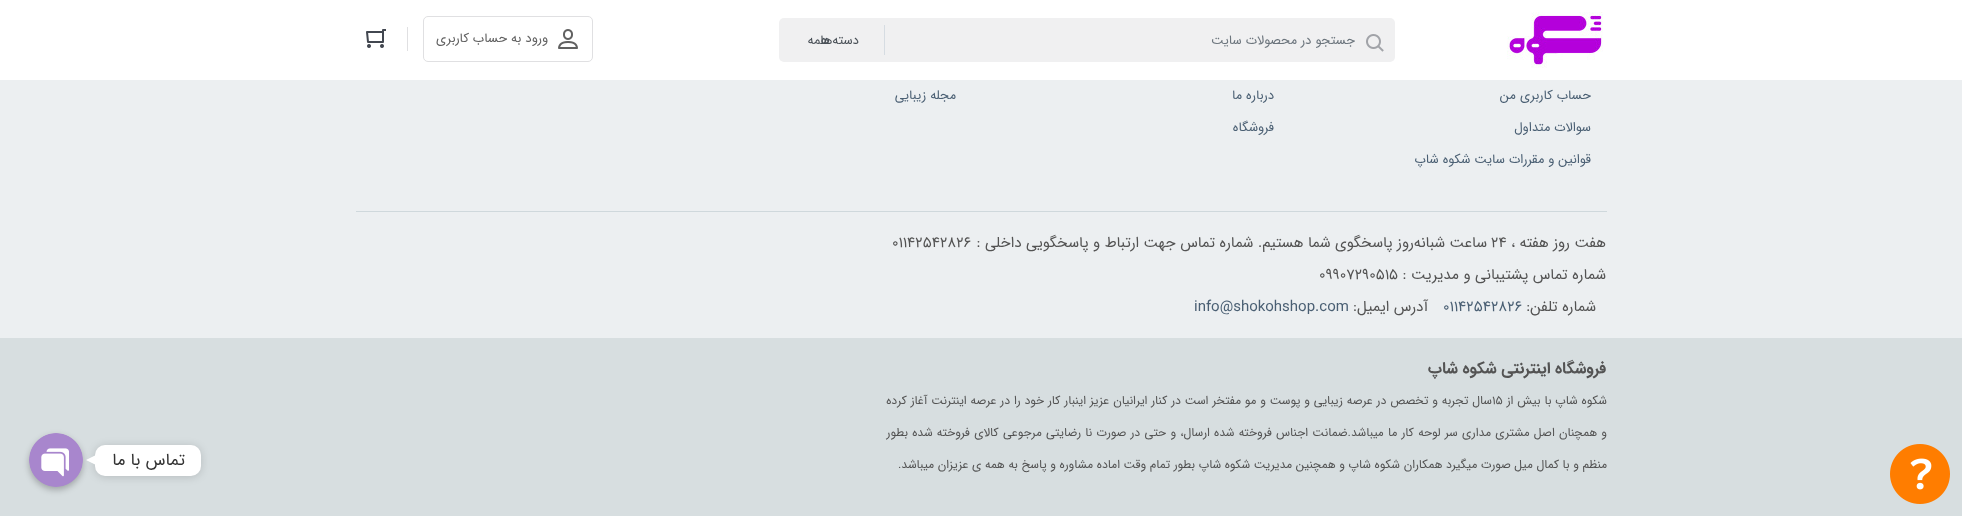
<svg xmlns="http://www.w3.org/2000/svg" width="1962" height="516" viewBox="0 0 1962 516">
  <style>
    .t1 { font: 13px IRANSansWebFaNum; direction: rtl; fill: #6c757d; }
    .t2 { font: 13px IRANSansWebFaNum; direction: rtl; fill: #495057; }
    .t3 { font: 13px IRANSansWebFaNum; direction: rtl; fill: #616161; }
    .t4 { font: 13px IRANSansWebFaNum; direction: rtl; fill: #4a5f73; }
    .t5 { font: 15px IRANSansWebFaNum; direction: rtl; fill: #535353; }
    .t6 { font: 15px IRANSansWebFaNum; fill: #535353; }
    .t7 { font: 15px IRANSansWebFaNum; fill: #4a5f73; }
    .t8 { font: bold 16px IRANSansWebFaNum; direction: rtl; fill: #535353; }
    .t9 { font: 12px IRANSansWebFaNum; direction: rtl; fill: #535353; }
    .t10 { font: 12px IRANSansWebFaNum; fill: #535353; }
    .t11 { font: 17px IRANSansWebFaNum; direction: rtl; fill: #333; }
  </style>
  <rect width="100%" height="100%" fill="#eceff1"/>
  <rect x="0" y="0" width="1962" height="80" fill="#fff"/>
  <image x="1507" y="12" width="96" height="56" href="images/1.png"/>
  <rect x="779" y="18" width="616" height="44" rx="5" fill="#f0f0f1"/>
  <image x="1366" y="34" width="18" height="18" href="images/2.png"/>
  <text x="1355" y="44" class="t1">جستجو در محصولات سایت</text>
  <rect x="884" y="25" width="1" height="30" fill="#d6dce2"/>
  <text x="829" y="44" class="t2">همه</text>
  <text x="859" y="44" class="t2">دسته‌ها</text>
  <rect x="423.5" y="16.5" width="169" height="45" rx="4.5" fill="none" stroke="#e0e0e2"/>
  <image x="558" y="29" width="20" height="20" href="images/3.png"/>
  <text x="548" y="42" class="t3">ورود به حساب کاربری</text>
  <rect x="407" y="27" width="1" height="24" fill="#e0e0e2"/>
  <image x="366" y="29" width="20" height="19" href="images/4.png"/>
  <rect x="0" y="338" width="1962" height="178" fill="#d7dee0"/>
  <image x="1890" y="444" width="60" height="60" href="images/5.png"/>
  <text x="1591" y="99" class="t4">حساب کاربری من</text>
  <text x="1591" y="131" class="t4">سوالات متداول</text>
  <text x="1591" y="163" class="t4">قوانین و مقررات سایت شکوه شاپ</text>
  <text x="1274" y="99" class="t4">درباره ما</text>
  <text x="1274" y="131" class="t4">فروشگاه</text>
  <text x="956" y="99" class="t4">مجله زیبایی</text>
  <rect x="356" y="211" width="1251" height="1" fill="#cfd8dc"/>
  <text x="1606" y="247" class="t5">هفت روز هفته ،</text>
  <text x="1491" y="247" class="t6">24</text>
  <text x="1487" y="247" class="t5">ساعت شبانه‌روز پاسخگوی شما هستیم. شماره تماس جهت ارتباط و پاسخگویی داخلی :</text>
  <text x="892" y="247" class="t6">01142542826</text>
  <text x="1606" y="279" class="t5">شماره تماس پشتیبانی و مدیریت :</text>
  <text x="1319" y="279" class="t6">09907290515</text>
  <text x="1596" y="311" class="t5">شماره تلفن:</text>
  <text x="1443" y="311" class="t7">01142542826</text>
  <text x="1428" y="311" class="t5">آدرس ایمیل:</text>
  <text x="1194" y="311" class="t7">info@shokohshop.com</text>
  <text x="1606" y="373" class="t8">فروشگاه اینترنتی شکوه شاپ</text>
  <text x="1607" y="404" word-spacing="0.25" class="t9">شکوه شاپ با بیش از</text>
  <text x="1492" y="404" class="t10">15</text>
  <text x="1492" y="404" word-spacing="0.25" class="t9">سال تجربه و تخصص در عرصه زیبایی و پوست و مو مفتخر است در کنار ایرانیان عزیز اینبار کار خود را در عرصه اینترنت آغاز کرده</text>
  <text x="1607" y="436" word-spacing="0.6" class="t9">و همچنان اصل مشتری مداری سر لوحه کار ما میباشد.ضمانت اجناس فروخته شده ارسال، و حتی در صورت نا رضایتی مرجوعی کالای فروخته شده بطور</text>
  <text x="1607" y="468" class="t9">منظم و با کمال میل صورت میگیرد همکاران شکوه شاپ و همچنین مدیریت شکوه شاپ بطور تمام وقت اماده مشاوره و پاسخ به همه ی عزیزان میباشد.</text>
  <rect x="29" y="436" width="54" height="54" rx="27" fill="#00000040" filter="blur(3px)"/>
  <image x="29" y="433" width="54" height="54" href="images/6.png"/>
  <rect x="95" y="446" width="106" height="31" rx="10" fill="#00000026" filter="blur(4px)"/>
  <rect x="95" y="445" width="106" height="31" rx="10" fill="#fff"/>
  <text x="185" y="465" class="t11">تماس با ما</text>
  <path d="M96 455V465L86 460Z" fill="#fff"/>
</svg>
